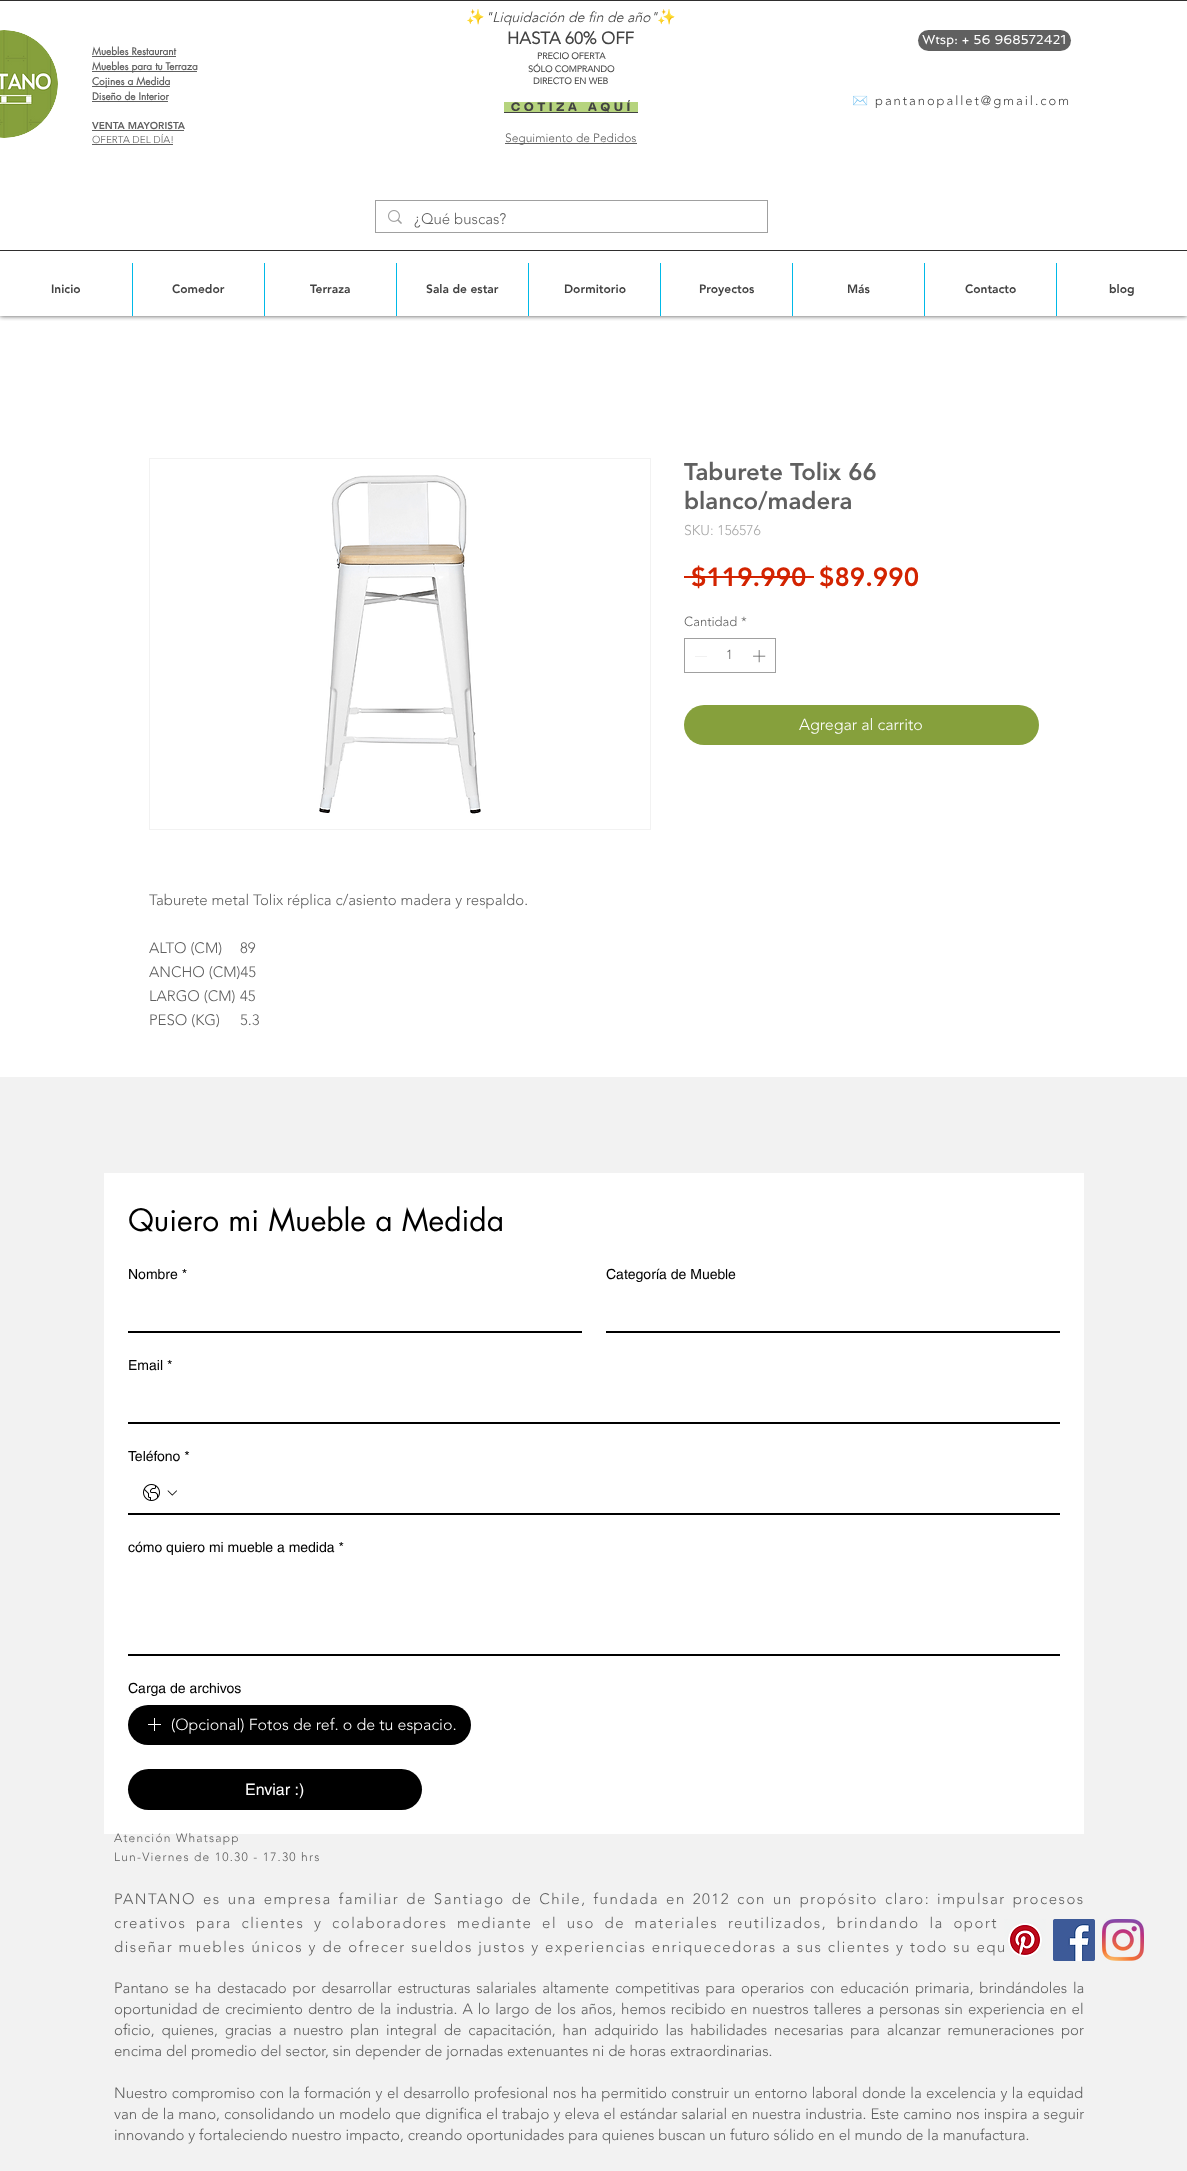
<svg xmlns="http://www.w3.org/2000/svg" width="1187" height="2171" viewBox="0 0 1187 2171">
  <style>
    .t1 { font: bold 15px Noto Color Emoji; fill: #606060; }
    .t2 { font: italic 300 14px 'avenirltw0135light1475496'; fill: #424242; }
    .t3 { font: bold 17px 'avenirltw0135light1475496'; fill: #424242; }
    .t4 { font: bold 9px 'avenirltw0135light1475496'; fill: #424242; }
    .t5 { font: bold 12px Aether; fill: #424242; }
    .t6 { font: 300 12px 'avenirltw0135light1475496'; fill: #606060; }
    .t7 { font: 13px Spinnaker; fill: #fff; }
    .t8 { font: bold 10px futura; fill: #606060; }
    .t9 { font: 900 10px 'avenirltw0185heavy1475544'; fill: #606060; }
    .t10 { font: 300 10px 'avenirltw0135light1475496'; fill: #606060; }
    .t11 { font: 13px Noto Color Emoji; letter-spacing: 1.95px; fill: #424242; }
    .t12 { font: 300 13px 'avenirltw0135light1475496'; letter-spacing: 1.95px; fill: #424242; }
    .t13 { font: 300 15px 'avenirltw0135light1475496'; fill: #606060; }
    .t14 { font: 900 12px 'avenirltw0185heavy1475544'; fill: #424242; }
    .t15 { font: 900 24px 'avenirltw0185heavy1475544'; fill: #606060; }
    .t16 { font: 300 14px 'avenirltw0135light1475496'; fill: #a8a8a8; }
    .t17 { font: 900 26px 'avenirltw0185heavy1475544'; fill: #d32300; }
    .t18 { font: 300 13px 'avenirltw0135light1475496'; fill: #606060; }
    .t19 { font: 300 16px 'avenirltw0135light1475496'; fill: #fff; }
    .t20 { font: 30px futura; fill: #000; }
    .t21 { font: 14px helvetica; fill: #000; }
    .t22 { font: 16px helvetica; fill: #fff; }
    .t23 { font: 300 12px 'avenirltw0135light1475496'; letter-spacing: 1.2px; fill: #606060; }
    .t24 { font: 300 15px 'avenirltw0135light1475496'; letter-spacing: 1.5px; fill: #606060; }
  </style>
  <defs>
    <clipPath id="clip1"><rect x="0" y="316" width="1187" height="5"/></clipPath>
  </defs>
  <rect width="100%" height="100%" fill="#fff"/>
  <g clip-path="url(#clip1)">
    <rect x="0" y="0" width="1187" height="316" fill="#000000b3" filter="blur(2.5px)"/>
  </g>
  <rect x="-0.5" y="0.5" width="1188" height="250" fill="none" stroke="#2f2e2e"/>
  <image x="0" y="30" width="58" height="108" href="images/1.png"/>
  <text x="466" y="22" class="t1">✨</text>
  <text x="485" y="22" class="t2">"Liquidación de fin de año"</text>
  <text x="657" y="22" class="t1">✨</text>
  <text x="507" y="44" class="t3">HASTA 60% OFF</text>
  <text x="537" y="59" class="t4">PRECIO OFERTA</text>
  <text x="528" y="72" class="t4">SÓLO COMPRANDO</text>
  <text x="533" y="84" class="t4">DIRECTO EN WEB</text>
  <rect x="504" y="102" width="134" height="10" fill="#b6d47e"/>
  <text x="511" y="111" class="t5" xml:space="preserve">C O T I Z A   A Q U Í</text>
  <rect x="504" y="112" width="134" height="1" fill="#424242"/>
  <rect x="505" y="143" width="132" height="1" fill="#606060"/>
  <text x="505" y="142" class="t6">Seguimiento de Pedidos</text>
  <rect x="918" y="30" width="153" height="21" rx="10.5" fill="#606060"/>
  <text x="922" y="44" class="t7">Wtsp: + 56 968572421</text>
  <text x="92" y="55" class="t8">Muebles Restaurant</text>
  <rect x="92" y="56" width="84" height="1" fill="#606060"/>
  <rect x="92" y="71" width="105" height="1" fill="#606060"/>
  <text x="92" y="70" class="t8">Muebles para tu Terraza</text>
  <rect x="92" y="86" width="78" height="1" fill="#606060"/>
  <text x="92" y="85" class="t8">Cojines a Medida</text>
  <text x="92" y="100" class="t8">Diseño de Interior</text>
  <rect x="92" y="101" width="76" height="1" fill="#606060"/>
  <text x="92" y="129" class="t9">VENTA MAYORISTA</text>
  <rect x="92" y="130" width="92" height="1" fill="#606060"/>
  <text x="92" y="143" class="t10">OFERTA DEL DÍA!</text>
  <rect x="92" y="144" width="81" height="1" fill="#606060"/>
  <text x="852" y="105" class="t11">✉️</text>
  <text x="875" y="105" class="t12">pantanopallet@gmail.com</text>
  <rect x="375.5" y="200.5" width="392" height="32" fill="none" stroke="#a0a0a0"/>
  <image x="388" y="210" width="14" height="14" href="images/2.png"/>
  <text x="414" y="224" class="t13">¿Qué buscas?</text>
  <text x="51" y="293" class="t14">Inicio</text>
  <rect x="132" y="263" width="1" height="53" fill="#00b9e8"/>
  <text x="172" y="293" class="t14">Comedor</text>
  <rect x="264" y="263" width="1" height="53" fill="#00b9e8"/>
  <text x="310" y="293" class="t14">Terraza</text>
  <rect x="396" y="263" width="1" height="53" fill="#00b9e8"/>
  <text x="426" y="293" class="t14">Sala de estar</text>
  <rect x="528" y="263" width="1" height="53" fill="#00b9e8"/>
  <text x="564" y="293" class="t14">Dormitorio</text>
  <rect x="660" y="263" width="1" height="53" fill="#00b9e8"/>
  <text x="699" y="293" class="t14">Proyectos</text>
  <rect x="792" y="263" width="1" height="53" fill="#00b9e8"/>
  <text x="847" y="293" class="t14">Más</text>
  <rect x="924" y="263" width="1" height="53" fill="#00b9e8"/>
  <text x="965" y="293" class="t14">Contacto</text>
  <rect x="1056" y="263" width="1" height="53" fill="#00b9e8"/>
  <text x="1109" y="293" class="t14">blog</text>
  <text x="684" y="480" class="t15">Taburete Tolix 66</text>
  <text x="684" y="509" class="t15">blanco/madera</text>
  <text x="684" y="535" class="t16">SKU: 156576</text>
  <text x="691" y="586" class="t17">$119.990</text>
  <rect x="684" y="576" width="130" height="2" fill="#d32300"/>
  <text x="819" y="586" class="t17">$89.990</text>
  <text x="684" y="626" class="t18">Cantidad</text>
  <text x="741" y="626" class="t18">*</text>
  <rect x="684.5" y="638.5" width="91" height="34" fill="none" stroke="#a0a0a0"/>
  <path d="M707 656V656.5H695V656Z" fill="#e3e3e3" fill-rule="evenodd"/>
  <text x="726" y="659" class="t18">1</text>
  <image x="753" y="650" width="13" height="13" href="images/3.png"/>
  <rect x="684" y="705" width="355" height="40" rx="20" fill="#86a03c"/>
  <text x="799" y="730" class="t19">Agregar al carrito</text>
  <rect x="149.5" y="458.5" width="501" height="371" fill="none" stroke="#f2f2f2"/>
  <image x="319" y="475" width="162" height="339" href="images/4.png"/>
  <text x="149" y="905" class="t13">Taburete metal Tolix réplica c/asiento madera y respaldo.</text>
  <text x="149" y="953" class="t13">ALTO (CM)</text>
  <text x="240" y="953" class="t13">89</text>
  <text x="149" y="977" class="t13">ANCHO (CM)45</text>
  <text x="149" y="1001" class="t13">LARGO (CM)</text>
  <text x="240" y="1001" class="t13">45</text>
  <text x="149" y="1025" class="t13">PESO (KG)</text>
  <text x="240" y="1025" class="t13">5.3</text>
  <rect x="0" y="1077" width="1187" height="1094" fill="#f2f2f2"/>
  <rect x="104" y="1173" width="980" height="661" fill="#fff"/>
  <text x="128" y="1231" class="t20">Quiero mi Mueble a Medida</text>
  <text x="128" y="1279" class="t21">Nombre *</text>
  <text x="606" y="1279" class="t21">Categoría de Mueble</text>
  <rect x="128" y="1331" width="454" height="2" fill="#000"/>
  <rect x="606" y="1331" width="454" height="2" fill="#000"/>
  <text x="128" y="1370" class="t21">Email *</text>
  <rect x="128" y="1422" width="932" height="2" fill="#000"/>
  <text x="128" y="1461" class="t21">Teléfono *</text>
  <rect x="128" y="1513" width="932" height="2" fill="#000"/>
  <image x="143" y="1484" width="17" height="17" href="images/5.png"/>
  <image x="167" y="1490" width="10" height="6" href="images/6.png"/>
  <text x="128" y="1552" class="t21">cómo quiero mi mueble a medida *</text>
  <rect x="128" y="1654" width="932" height="2" fill="#000"/>
  <text x="128" y="1693" class="t21">Carga de archivos</text>
  <rect x="128" y="1705" width="343" height="40" rx="20" fill="#000"/>
  <image x="148" y="1718" width="13" height="13" href="images/7.png"/>
  <text x="171" y="1730" class="t19">(Opcional) Fotos de ref. o de tu espacio.</text>
  <rect x="128" y="1769" width="294" height="41" rx="20.5" fill="#000"/>
  <text x="245" y="1795" class="t22">Enviar :)</text>
  <text x="114" y="1842" class="t23">Atención Whatsapp</text>
  <text x="114" y="1861" class="t23">Lun-Viernes de 10.30 - 17.30 hrs</text>
  <text x="114" y="1904" word-spacing="1.6" class="t24">PANTANO es una empresa familiar de Santiago de Chile, fundada en 2012 con un propósito claro: impulsar procesos</text>
  <text x="114" y="1928" word-spacing="4.25" class="t24">creativos para clientes y colaboradores mediante el uso de materiales reutilizados, brindando la oport</text>
  <text x="114" y="1952" class="t24">diseñar muebles únicos y de ofrecer sueldos justos y experiencias enriquecedoras a sus clientes y todo su equ</text>
  <text x="114" y="1993" word-spacing="1.9" class="t13">Pantano se ha destacado por desarrollar estructuras salariales altamente competitivas para operarios con educación primaria, brindándoles la</text>
  <text x="114" y="2014" word-spacing="1.1" class="t13">oportunidad de crecimiento dentro de la industria. A lo largo de los años, hemos recibido en nuestros talleres a personas sin experiencia en el</text>
  <text x="114" y="2035" word-spacing="3" class="t13">oficio, quienes, gracias a nuestro plan integral de capacitación, han adquirido las habilidades necesarias para alcanzar remuneraciones por</text>
  <text x="114" y="2056" class="t13">encima del promedio del sector, sin depender de jornadas extenuantes ni de horas extraordinarias.</text>
  <text x="114" y="2098" word-spacing="0.5" class="t13">Nuestro compromiso con la formación y el desarrollo profesional nos ha permitido construir un entorno laboral donde la excelencia y la equidad</text>
  <text x="114" y="2119" word-spacing="0.2" class="t13">van de la mano, consolidando un modelo que dignifica el trabajo y eleva el estándar salarial en nuestra industria. Este camino nos inspira a seguir</text>
  <text x="114" y="2140" class="t13">innovando y fortaleciendo nuestro impacto, creando oportunidades para quienes buscan un futuro sólido en el mundo de la manufactura.</text>
  <image x="1004" y="1919" width="42" height="38" href="images/8.png"/>
  <image x="1053" y="1919" width="42" height="42" href="images/9.png"/>
  <image x="1102" y="1919" width="42" height="42" href="images/10.png"/>
</svg>
